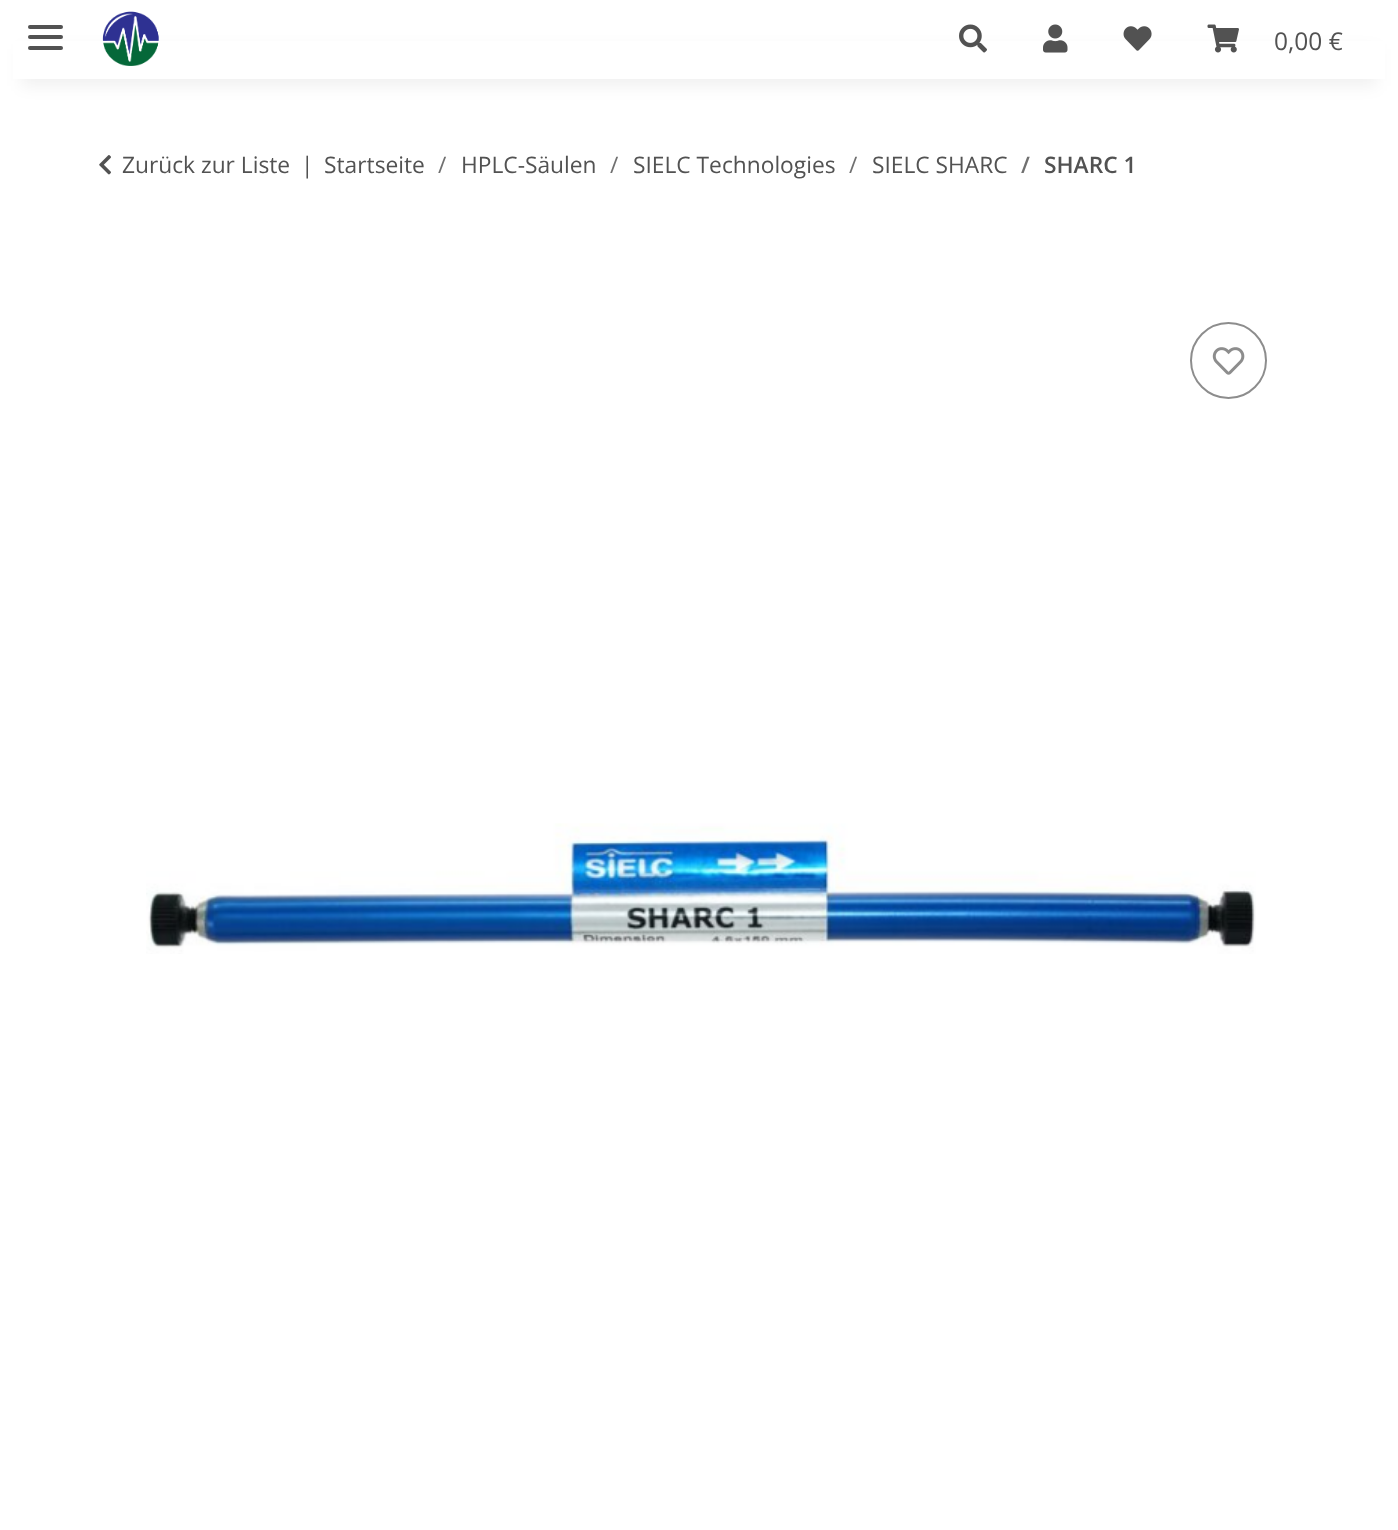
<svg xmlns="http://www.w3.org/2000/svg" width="1398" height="1530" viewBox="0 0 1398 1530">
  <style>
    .t1 { font: 24.5px Open Sans; fill: #525252; }
    .t2 { font: 22.75px Open Sans; fill: #525252; }
    .t3 { font: 22.75px Open Sans; fill: #707070; }
    .t4 { font: 600 22.75px Open Sans; fill: #707070; }
    .t5 { font: 600 22.75px Open Sans; fill: #525252; }
  </style>
  <rect width="100%" height="100%" fill="#fff"/>
  <rect x="21" y="49" width="1356" height="37" fill="#0000000f" filter="blur(8px)"/>
  <rect x="13" y="41" width="1372" height="38" fill="#fff"/>
  <rect x="28" y="35" width="35" height="4" rx="2" fill="#525252"/>
  <rect x="28" y="25" width="35" height="4" rx="2" fill="#525252"/>
  <rect x="28" y="46" width="35" height="4" rx="2" fill="#525252"/>
  <image x="102" y="11" width="57" height="55" href="images/1.png"/>
  <image x="959" y="24" width="28" height="29" href="images/2.png"/>
  <image x="1043" y="24" width="25" height="29" href="images/3.png"/>
  <image x="1123" y="26" width="29" height="25" href="images/4.png"/>
  <image x="1207" y="24" width="32" height="29" href="images/5.png"/>
  <text x="1274" y="50" class="t1">0,00 €</text>
  <image x="99" y="155" width="12" height="20" href="images/6.png"/>
  <text x="122" y="173" class="t2">Zurück zur Liste</text>
  <text x="301" y="173" class="t2">|</text>
  <text x="324" y="173" class="t2">Startseite</text>
  <text x="438" y="173" class="t3">/</text>
  <text x="461" y="173" class="t2">HPLC-Säulen</text>
  <text x="610" y="173" class="t3">/</text>
  <text x="633" y="173" class="t2">SIELC Technologies</text>
  <text x="849" y="173" class="t3">/</text>
  <text x="872" y="173" class="t2">SIELC SHARC</text>
  <text x="1021" y="173" class="t4">/</text>
  <text x="1044" y="173" class="t5">SHARC 1</text>
  <circle cx="1228.5" cy="360.5" r="37.5" fill="none" stroke="#8d8d8d" stroke-width="2"/>
  <image x="1212" y="347" width="33" height="28" href="images/7.png"/>
  <image x="146" y="823" width="1110" height="131" href="images/8.png"/>
</svg>
